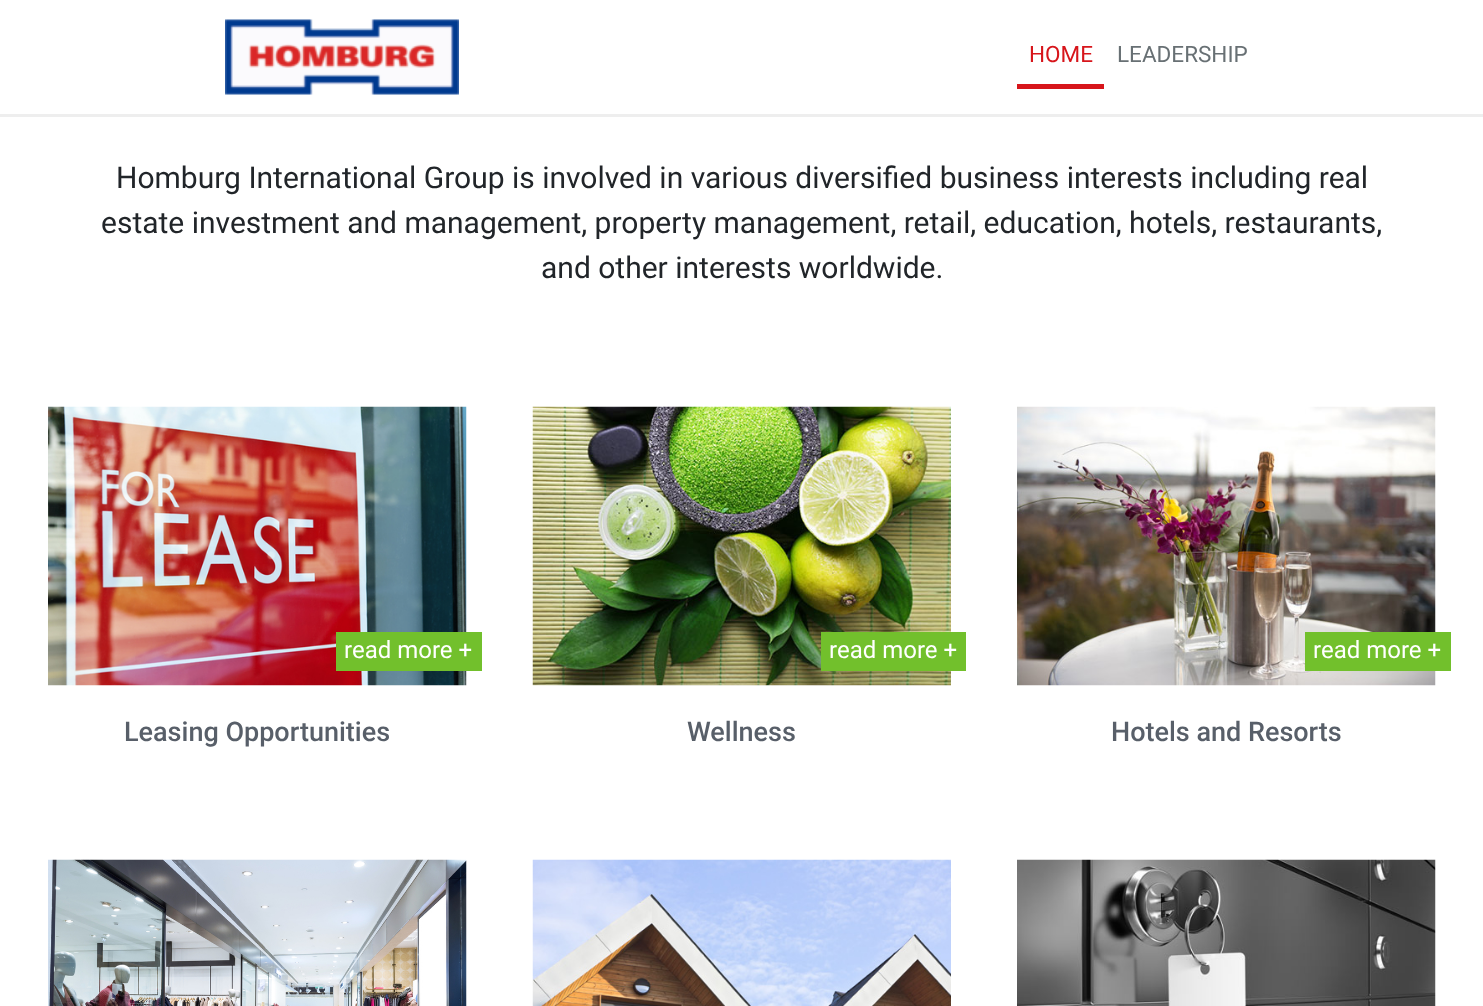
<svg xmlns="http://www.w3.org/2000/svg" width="1483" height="1006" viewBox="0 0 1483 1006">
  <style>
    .t1 { font: 22.5px Roboto; fill: #d7151b; }
    .t2 { font: 22.5px Roboto; fill: #687074; }
    .t3 { font: 30px Roboto; fill: #212529; }
    .t4 { font: 24px Roboto; fill: #fff; }
    .t5 { font: 500 27px Roboto; fill: #585f69; }
  </style>
  <rect width="100%" height="100%" fill="#fff"/>
  <rect x="0" y="114" width="1483" height="3" fill="#eee"/>
  <image x="225" y="19" width="234" height="76" href="images/1.png"/>
  <rect x="1017" y="84" width="87" height="5" fill="#d7151b"/>
  <text x="1029" y="62" class="t1">HOME</text>
  <text x="1117" y="62" class="t2">LEADERSHIP</text>
  <text x="116" y="188" class="t3">Homburg International Group is involved in various diversified business interests including real</text>
  <text x="101" y="233" class="t3">estate investment and management, property management, retail, education, hotels, restaurants,</text>
  <text x="541" y="278" class="t3">and other interests worldwide.</text>
  <image x="48" y="406" width="419" height="280" href="images/2.png"/>
  <rect x="336" y="632" width="146" height="39" fill="#72c02c"/>
  <text x="344" y="658" class="t4">read more +</text>
  <text x="124" y="741" class="t5">Leasing Opportunities</text>
  <image x="48" y="859" width="419" height="147" href="images/3.png"/>
  <image x="532" y="406" width="419" height="280" href="images/4.png"/>
  <rect x="821" y="632" width="145" height="39" fill="#72c02c"/>
  <text x="829" y="658" class="t4">read more +</text>
  <text x="687" y="741" class="t5">Wellness</text>
  <image x="532" y="859" width="419" height="147" href="images/5.png"/>
  <image x="1017" y="406" width="419" height="280" href="images/6.png"/>
  <rect x="1305" y="632" width="146" height="39" fill="#72c02c"/>
  <text x="1313" y="658" class="t4">read more +</text>
  <text x="1111" y="741" class="t5">Hotels and Resorts</text>
  <image x="1017" y="859" width="419" height="147" href="images/7.png"/>
</svg>
